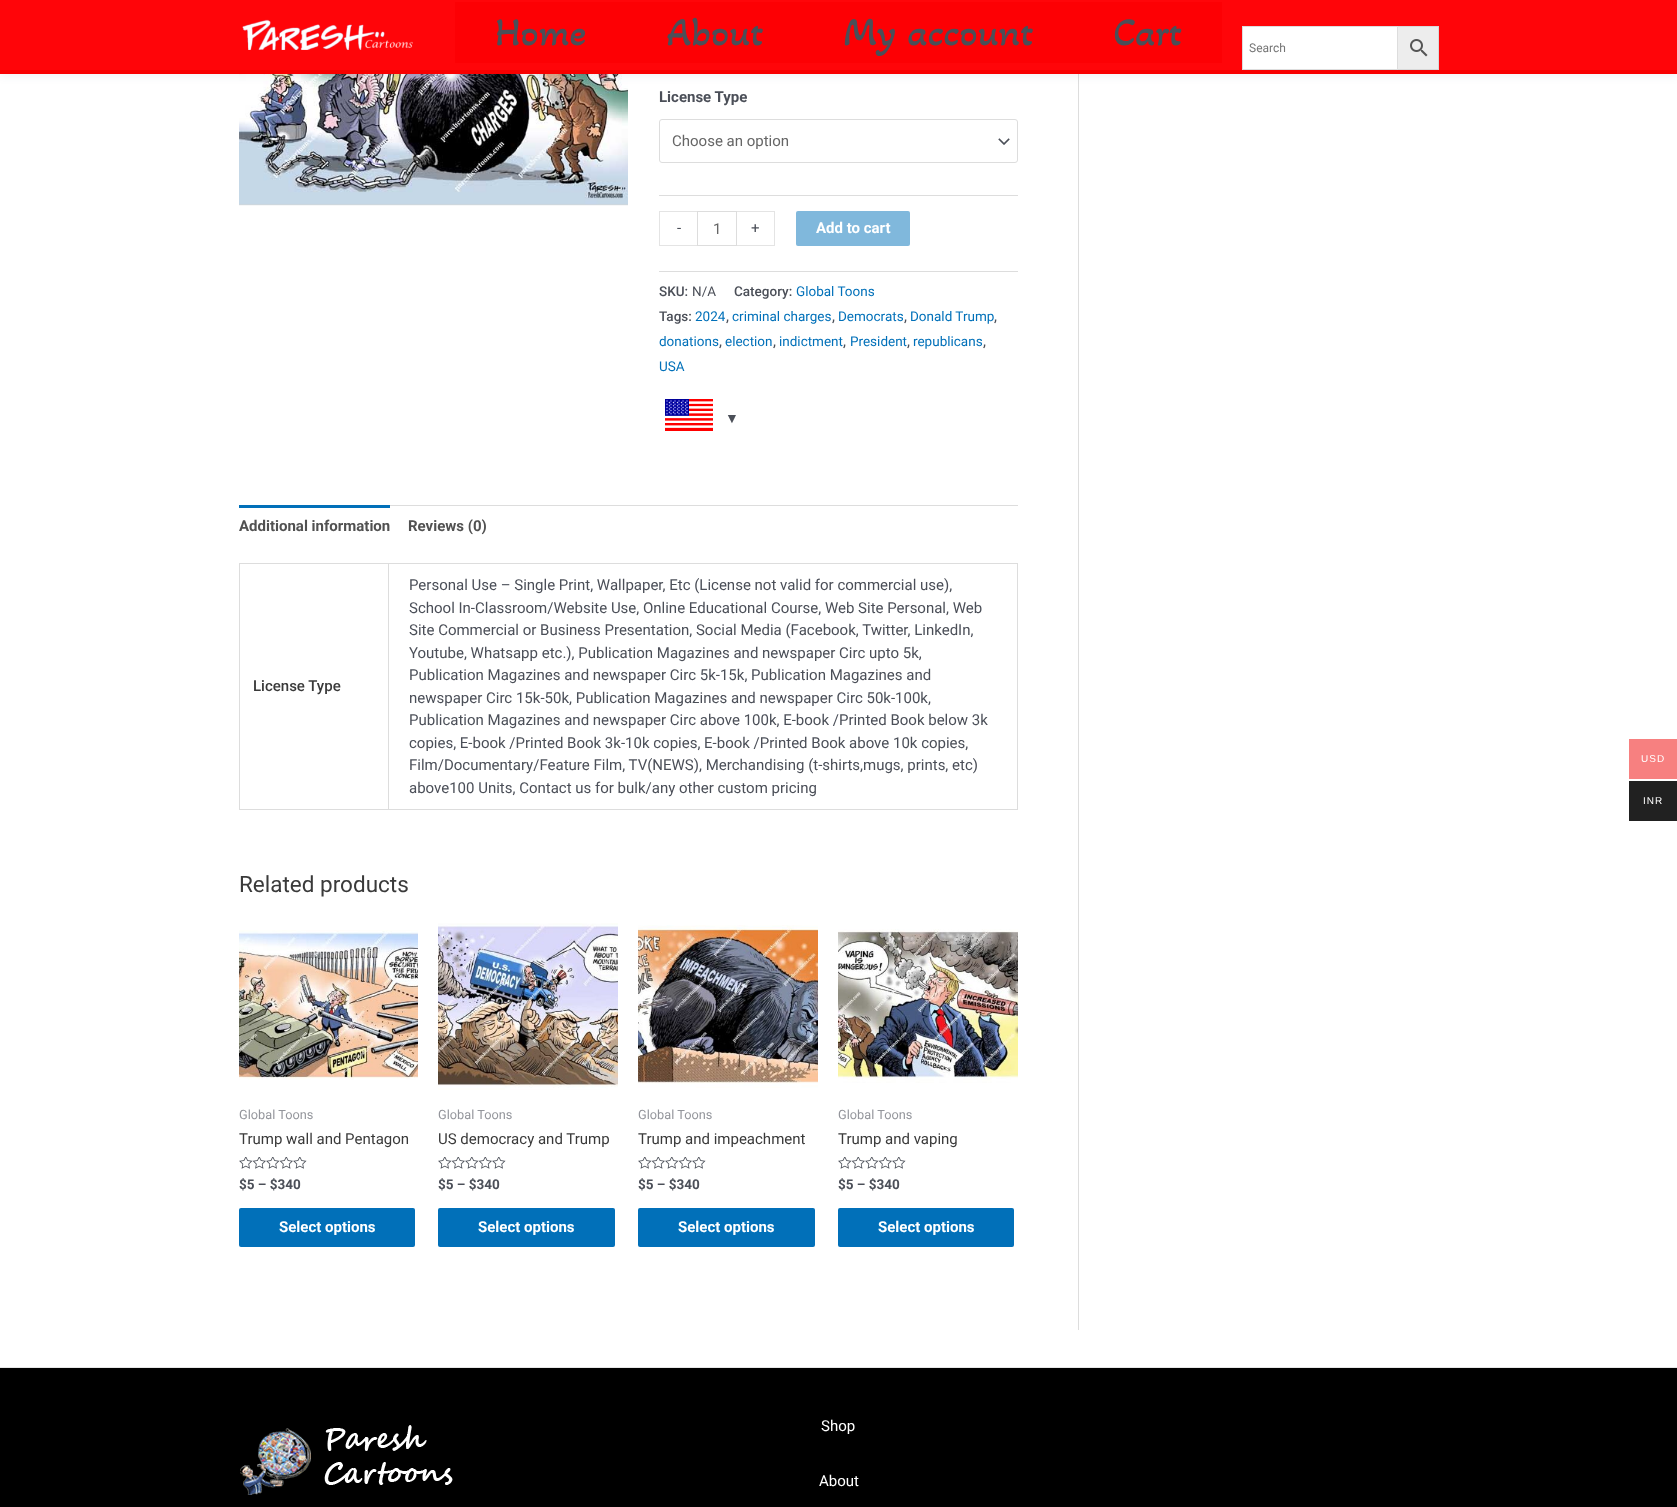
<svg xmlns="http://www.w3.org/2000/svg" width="1677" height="1507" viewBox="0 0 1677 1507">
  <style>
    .t1 { font: 40px Akaya Telivigala; fill: #4b4f58; }
    .t2 { font: 12px Roboto; fill: #757575; }
    .t3 { font: bold 15px Roboto; fill: #4b4f58; }
    .t4 { font: 15px Roboto; fill: #666; }
    .t5 { font: 15px Roboto; fill: #4b4f58; }
    .t6 { font: bold 15px Roboto; fill: #fff; }
    .t7 { font: 500 13.5px Roboto; fill: #4b4f58; }
    .t8 { font: 13.5px Roboto; fill: #4b4f58; }
    .t9 { font: 13.5px Roboto; fill: #0170b9; }
    .t10 { font: 14px Liberation Sans; fill: #4b4f58; }
    .t11 { font: bold 15px Roboto; fill: #515151; }
    .t12 { font: 500 15px Roboto; fill: #3a3a3a; }
    .t13 { font: 22.5px Roboto; fill: #3a3a3a; }
    .t14 { font: 12.75px Roboto; fill: #93959b; }
    .t15 { font: 15px Roboto; fill: #3a3a3a; }
    .t16 { font: bold 13.5px Roboto; fill: #4b4f58; }
    .t17 { font: 15px Roboto; fill: #fff; }
    .t18 { font: 10px Liberation Sans; letter-spacing: 1px; fill: #fff; }
  </style>
  <rect width="100%" height="100%" fill="#fff"/>
  <image x="239" y="74" width="389" height="132" href="images/3.png"/>
  <rect x="1078" y="74" width="1" height="1256" fill="#ddd"/>
  <rect x="0" y="2" width="1677" height="74" fill="#24324212" filter="blur(5px)"/>
  <rect x="0" y="0" width="1677" height="70" fill="#ff0509"/>
  <rect x="0" y="70" width="1677" height="4" fill="#f80000"/>
  <image x="242" y="19" width="171" height="31" href="images/1.png"/>
  <rect x="455" y="2" width="767" height="61" fill="#fd0004"/>
  <text x="495" y="45" class="t1">Home</text>
  <text x="667" y="45" class="t1">About</text>
  <text x="843" y="45" class="t1">My account</text>
  <text x="1113" y="45" class="t1">Cart</text>
  <rect x="1397.5" y="26.5" width="41" height="43" fill="#ededed" stroke="#d8d8d8"/>
  <rect x="1242.5" y="26.5" width="155" height="43" fill="#fff" stroke="#ddd"/>
  <text x="1249" y="52" class="t2">Search</text>
  <image x="1410" y="39" width="18" height="18" href="images/2.png"/>
  <rect x="659" y="195" width="359" height="1" fill="#ddd"/>
  <text x="659" y="102" class="t3">License Type</text>
  <image x="998" y="138" width="12" height="7" href="images/4.png"/>
  <rect x="659.5" y="119.5" width="358" height="43" rx="2.5" fill="none" stroke="#ddd"/>
  <text x="672" y="146" class="t4">Choose an option</text>
  <rect x="659" y="211" width="38" height="1" fill="#e4e4e4"/>
  <rect x="659" y="245" width="38" height="1" fill="#e4e4e4"/>
  <rect x="659" y="211" width="1" height="35" fill="#e4e4e4"/>
  <text x="677" y="233" class="t5">-</text>
  <rect x="697.5" y="211.5" width="39" height="34" fill="none" stroke="#ddd"/>
  <text x="713" y="234" class="t4">1</text>
  <rect x="737" y="211" width="38" height="1" fill="#e4e4e4"/>
  <rect x="774" y="211" width="1" height="35" fill="#e4e4e4"/>
  <rect x="737" y="245" width="38" height="1" fill="#e4e4e4"/>
  <text x="751" y="233" class="t5">+</text>
  <rect x="796" y="211" width="114" height="35" rx="2" fill="#80b8dc"/>
  <text x="816" y="233" class="t6">Add to cart</text>
  <rect x="659" y="271" width="359" height="1" fill="#ddd"/>
  <text x="659" y="296" class="t7">SKU:</text>
  <text x="692" y="296" class="t8">N/A</text>
  <text x="734" y="296" class="t7">Category:</text>
  <text x="796" y="296" class="t9">Global Toons</text>
  <text x="659" y="321" class="t7">Tags:</text>
  <text x="695" y="321" class="t9">2024</text>
  <text x="726" y="321" class="t7">,</text>
  <text x="732" y="321" class="t9">criminal charges</text>
  <text x="832" y="321" class="t7">,</text>
  <text x="838" y="321" class="t9">Democrats</text>
  <text x="904" y="321" class="t7">,</text>
  <text x="910" y="321" class="t9">Donald Trump</text>
  <text x="994" y="321" class="t7">,</text>
  <text x="659" y="346" class="t9">donations</text>
  <text x="719" y="346" class="t7">,</text>
  <text x="725" y="346" class="t9">election</text>
  <text x="773" y="346" class="t7">,</text>
  <text x="779" y="346" class="t9">indictment</text>
  <text x="843" y="346" class="t7">,</text>
  <text x="850" y="346" class="t9">President</text>
  <text x="907" y="346" class="t7">,</text>
  <text x="913" y="346" class="t9">republicans</text>
  <text x="983" y="346" class="t7">,</text>
  <text x="659" y="371" class="t9">USA</text>
  <image x="665" y="399" width="48" height="32" href="images/5.png"/>
  <text x="725" y="423" class="t10">▼</text>
  <rect x="390" y="505" width="628" height="1" fill="#ddd"/>
  <rect x="239" y="505" width="151" height="3" fill="#0170b9"/>
  <text x="239" y="531" class="t11">Additional information</text>
  <text x="408" y="531" class="t11">Reviews (0)</text>
  <rect x="239" y="563" width="779" height="1" fill="#ddd"/>
  <rect x="388" y="564" width="1" height="246" fill="#ddd"/>
  <rect x="239" y="809" width="150" height="1" fill="#ddd"/>
  <rect x="239" y="564" width="1" height="246" fill="#ddd"/>
  <text x="253" y="691" class="t12">License Type</text>
  <rect x="1017" y="564" width="1" height="246" fill="#ddd"/>
  <rect x="389" y="809" width="629" height="1" fill="#ddd"/>
  <text x="409" y="590" class="t5">Personal Use – Single Print, Wallpaper, Etc (License not valid for commercial use),</text>
  <text x="409" y="613" class="t5">School In-Classroom/Website Use, Online Educational Course, Web Site Personal, Web</text>
  <text x="409" y="635" class="t5">Site Commercial or Business Presentation, Social Media (Facebook, Twitter, LinkedIn,</text>
  <text x="409" y="658" class="t5">Youtube, Whatsapp etc.), Publication Magazines and newspaper Circ upto 5k,</text>
  <text x="409" y="680" class="t5">Publication Magazines and newspaper Circ 5k-15k, Publication Magazines and</text>
  <text x="409" y="703" class="t5">newspaper Circ 15k-50k, Publication Magazines and newspaper Circ 50k-100k,</text>
  <text x="409" y="725" class="t5">Publication Magazines and newspaper Circ above 100k, E-book /Printed Book below 3k</text>
  <text x="409" y="748" class="t5">copies, E-book /Printed Book 3k-10k copies, E-book /Printed Book above 10k copies,</text>
  <text x="409" y="770" class="t5">Film/Documentary/Feature Film, TV(NEWS), Merchandising (t-shirts,mugs, prints, etc)</text>
  <text x="409" y="793" class="t5">above100 Units, Contact us for bulk/any other custom pricing</text>
  <text x="239" y="892" class="t13">Related products</text>
  <image x="239" y="930" width="179" height="150" href="images/6.png"/>
  <text x="239" y="1119" class="t14">Global Toons</text>
  <text x="239" y="1144" class="t15">Trump wall and Pentagon</text>
  <image x="239" y="1157" width="68" height="12" href="images/7.png"/>
  <text x="239" y="1189" class="t16">$5 – $340</text>
  <rect x="239" y="1208" width="176" height="39" rx="2" fill="#0170b9"/>
  <text x="279" y="1232" class="t6">Select options</text>
  <image x="438" y="923" width="180" height="167" href="images/8.png"/>
  <text x="438" y="1119" class="t14">Global Toons</text>
  <text x="438" y="1144" class="t15">US democracy and Trump</text>
  <image x="438" y="1157" width="68" height="12" href="images/7.png"/>
  <text x="438" y="1189" class="t16">$5 – $340</text>
  <rect x="438" y="1208" width="177" height="39" rx="2" fill="#0170b9"/>
  <text x="478" y="1232" class="t6">Select options</text>
  <image x="638" y="925" width="180" height="163" href="images/9.png"/>
  <text x="638" y="1119" class="t14">Global Toons</text>
  <text x="638" y="1144" class="t15">Trump and impeachment</text>
  <image x="638" y="1157" width="68" height="12" href="images/7.png"/>
  <text x="638" y="1189" class="t16">$5 – $340</text>
  <rect x="638" y="1208" width="177" height="39" rx="2" fill="#0170b9"/>
  <text x="678" y="1232" class="t6">Select options</text>
  <image x="838" y="929" width="180" height="154" href="images/10.png"/>
  <text x="838" y="1119" class="t14">Global Toons</text>
  <text x="838" y="1144" class="t15">Trump and vaping</text>
  <image x="838" y="1157" width="68" height="12" href="images/7.png"/>
  <text x="838" y="1189" class="t16">$5 – $340</text>
  <rect x="838" y="1208" width="176" height="39" rx="2" fill="#0170b9"/>
  <text x="878" y="1232" class="t6">Select options</text>
  <rect x="0" y="1368" width="1677" height="139" fill="#000"/>
  <rect x="0" y="1367" width="1677" height="1" fill="#e6e6e6"/>
  <image x="240" y="1425" width="213" height="70" href="images/11.png"/>
  <text x="821" y="1431" class="t17">Shop</text>
  <text x="819" y="1486" class="t17">About</text>
  <rect x="1629" y="739" width="48" height="40" fill="#f78080"/>
  <text x="1641" y="762" class="t18">USD</text>
  <rect x="1629" y="781" width="48" height="40" fill="#212121"/>
  <text x="1643" y="804" class="t18">INR</text>
</svg>
